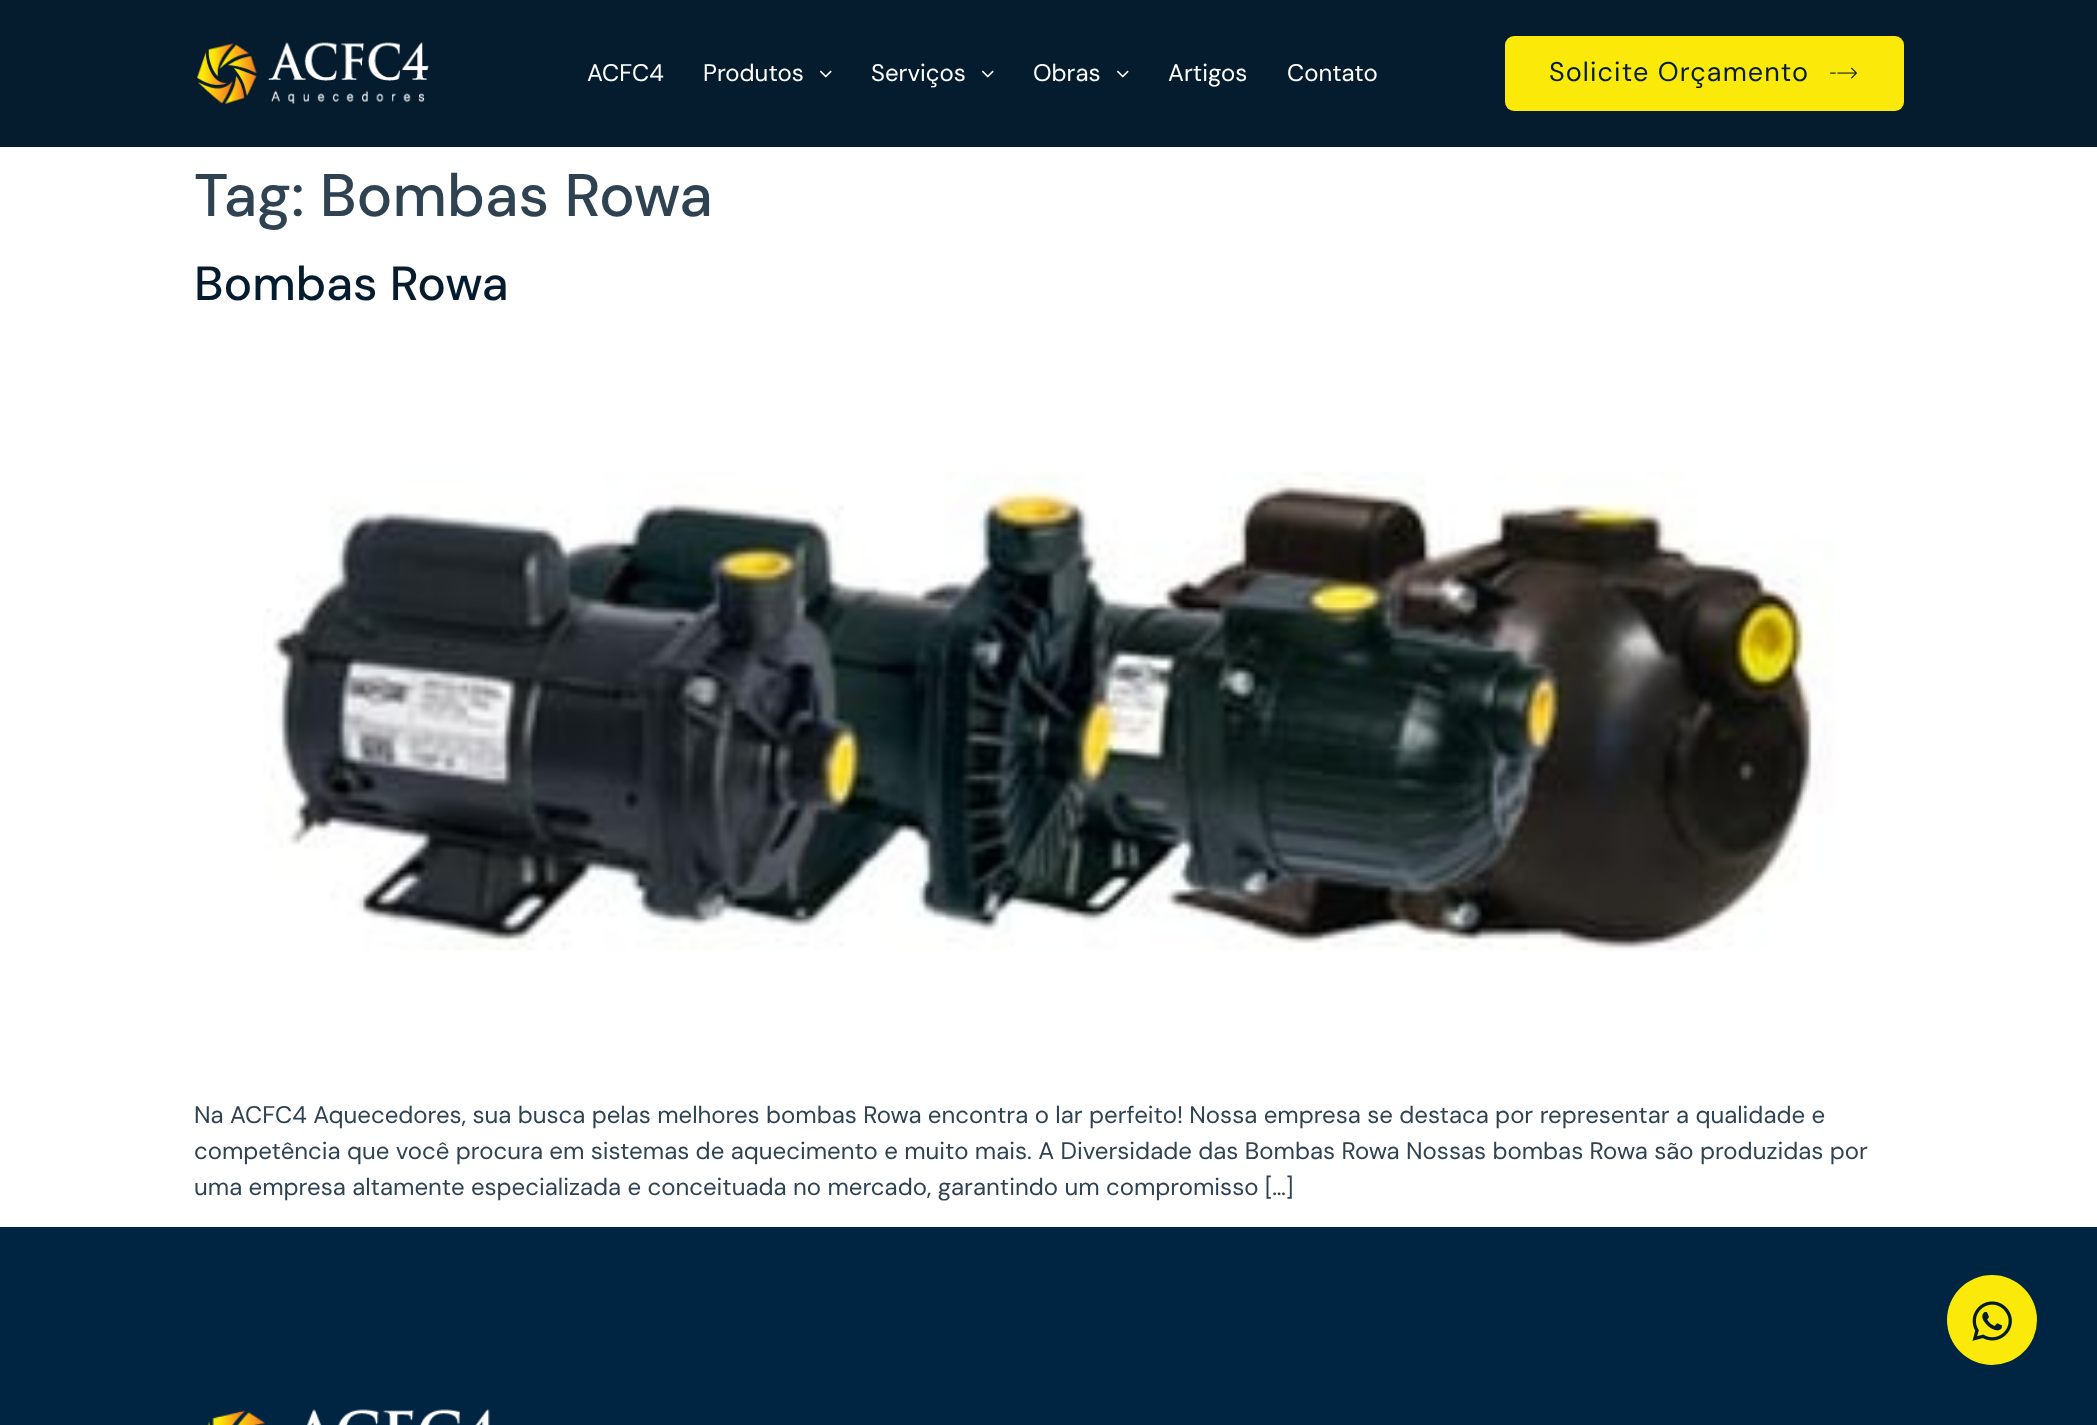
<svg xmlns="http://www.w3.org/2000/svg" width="2097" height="1425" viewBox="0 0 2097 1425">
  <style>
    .t1 { font: 24px DM Sans; fill: #fff; }
    .t2 { font: 27px DM Sans; letter-spacing: 1.1px; fill: #051c2f; }
    .t3 { font: 500 60px DM Sans; fill: #2f4252; }
    .t4 { font: 500 48px DM Sans; fill: #051c2f; }
    .t5 { font: 24px DM Sans; fill: #2f4252; }
  </style>
  <rect width="100%" height="100%" fill="#fff"/>
  <rect x="0" y="0" width="2097" height="147" fill="#051c2f"/>
  <image x="197" y="42" width="232" height="62" href="images/1.png"/>
  <text x="587" y="81" class="t1">ACFC4</text>
  <text x="703" y="81" class="t1">Produtos</text>
  <image x="819" y="70" width="13" height="8" href="images/2.png"/>
  <text x="871" y="81" class="t1">Serviços</text>
  <image x="981" y="70" width="13" height="8" href="images/2.png"/>
  <text x="1033" y="81" class="t1">Obras</text>
  <image x="1116" y="70" width="13" height="8" href="images/2.png"/>
  <text x="1168" y="81" class="t1">Artigos</text>
  <text x="1287" y="81" class="t1">Contato</text>
  <rect x="1505" y="36" width="399" height="75" rx="9" fill="#fbe90a"/>
  <text x="1549" y="81" class="t2">Solicite Orçamento</text>
  <image x="1830" y="67" width="27" height="12" href="images/3.png"/>
  <text x="194" y="216" class="t3">Tag: Bombas Rowa</text>
  <text x="194" y="300" class="t4">Bombas Rowa</text>
  <image x="263" y="471" width="1573" height="480" href="images/4.png"/>
  <text x="194" y="1123" class="t5">Na ACFC4 Aquecedores, sua busca pelas melhores bombas Rowa encontra o lar perfeito! Nossa empresa se destaca por representar a qualidade e</text>
  <text x="194" y="1159" class="t5">competência que você procura em sistemas de aquecimento e muito mais. A Diversidade das Bombas Rowa Nossas bombas Rowa são produzidas por</text>
  <text x="194" y="1195" class="t5">uma empresa altamente especializada e conceituada no mercado, garantindo um compromisso […]</text>
  <rect x="0" y="1227" width="2097" height="198" fill="#002542"/>
  <circle cx="1992" cy="1320" r="45" fill="#fbe90a"/>
  <image x="1972" y="1301" width="40" height="40" href="images/5.png"/>
  <image x="207" y="1409" width="283" height="16" href="images/6.png"/>
</svg>
